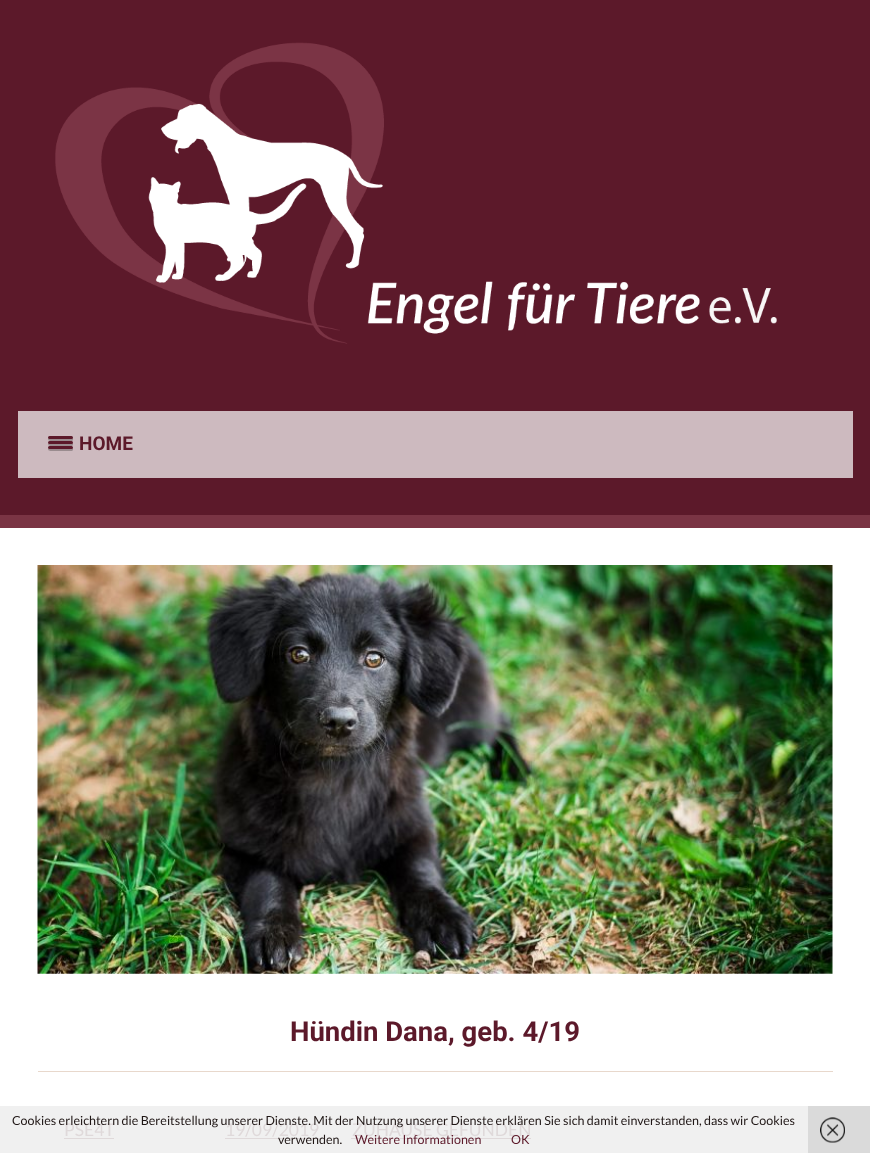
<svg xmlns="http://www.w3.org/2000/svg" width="870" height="1153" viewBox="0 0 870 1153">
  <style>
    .t1 { font: bold 19px Roboto; fill: #5c192a; }
    .t2 { font: bold 27.5px Roboto; fill: #5c192a; }
    .t3 { font: 17.5px Lato; fill: #dfd9da; }
    .t4 { font: 12.5px Lato; fill: #1f1615; }
    .t5 { font: 12.5px Lato; fill: #5c192a; }
  </style>
  <rect width="100%" height="100%" fill="#5c192a"/>
  <rect x="0" y="515" width="870" height="13" fill="#7a3444"/>
  <image x="55" y="42" width="722" height="302" href="images/1.png"/>
  <rect x="18" y="411" width="835" height="67" fill="#cdbabf"/>
  <path d="M48.5 438.5C46.5 441.5 53 441 53 441H72C73 440.5 73.5 439 72.5 438L71.5 438.5Z" fill="#9a8c8f"/>
  <rect x="48" y="436" width="25" height="3" rx="1.5" fill="#5c192a"/>
  <path d="M48.5 443.5C46.5 446.5 53 446 53 446H72C73 445.5 73.5 444 72.5 443L71.5 443.5Z" fill="#9a8c8f"/>
  <rect x="48" y="441" width="25" height="3" rx="1.5" fill="#5c192a"/>
  <path d="M48.5 448.5C46.5 451.5 53 451 53 451H72C73 450.5 73.5 449 72.5 448L71.5 448.5Z" fill="#9a8c8f"/>
  <rect x="48" y="446" width="25" height="3" rx="1.5" fill="#5c192a"/>
  <text x="79" y="450" class="t1">HOME</text>
  <rect x="0" y="528" width="870" height="578" fill="#fff"/>
  <rect x="0" y="1106" width="808" height="47" fill="#f0f0f0"/>
  <image x="37" y="565" width="796" height="409" href="images/2.png"/>
  <rect x="38" y="1071" width="795" height="1" fill="#e8d8cc"/>
  <text x="290" y="1041" class="t2">Hündin Dana, geb. 4/19</text>
  <text x="64" y="1136" class="t3">PSE4T</text>
  <rect x="64" y="1138" width="50" height="1" fill="#dfd9da"/>
  <text x="225" y="1136" class="t3">19/09/2019</text>
  <rect x="225" y="1138" width="95" height="1" fill="#dfd9da"/>
  <text x="352" y="1136" class="t3">ZUHAUSE GEFUNDEN</text>
  <rect x="351" y="1138" width="180" height="1" fill="#dfd9da"/>
  <text x="12" y="1125" class="t4">Cookies erleichtern die Bereitstellung unserer Dienste. Mit der Nutzung unserer Dienste erklären Sie sich damit einverstanden, dass wir Cookies</text>
  <text x="278" y="1144" class="t4">verwenden.</text>
  <text x="355" y="1144" class="t5">Weitere Informationen</text>
  <text x="511" y="1144" class="t5">OK</text>
  <rect x="808" y="1106" width="62" height="47" fill="#dadada"/>
  <image x="820" y="1117" width="25" height="26" href="images/3.png"/>
</svg>
